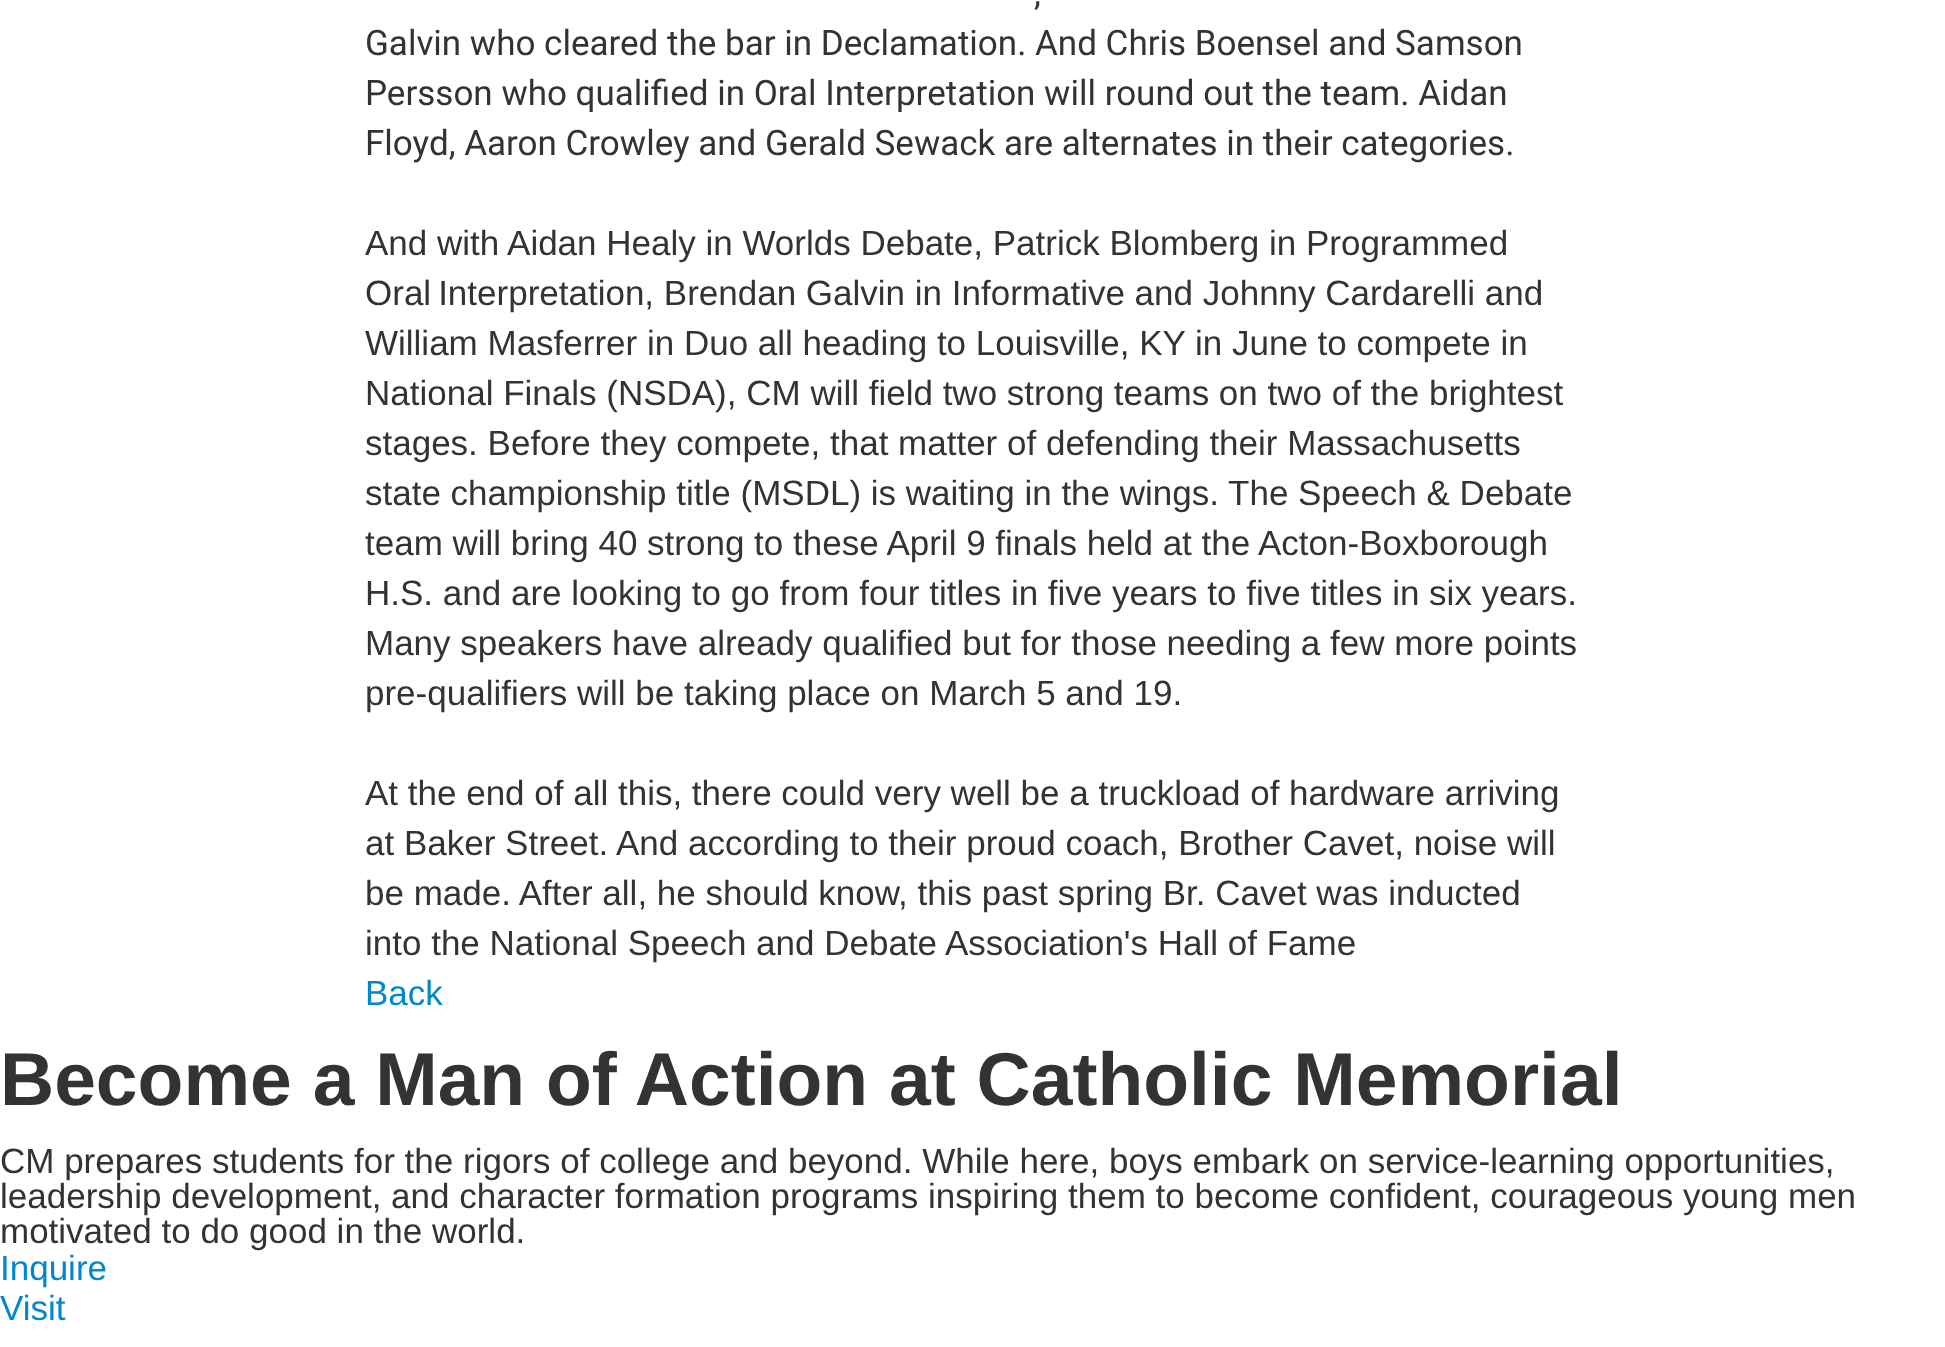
<svg xmlns="http://www.w3.org/2000/svg" width="1945" height="1347" viewBox="0 0 1945 1347">
  <style>
    .t1 { font: 35px Roboto; fill: #333; }
    .t2 { font: 35px Liberation Sans; fill: #333; }
    .t3 { font: 35px Liberation Sans; fill: #08c; }
    .t4 { font: bold 75px Liberation Sans; fill: #333; }
  </style>
  <rect width="100%" height="100%" fill="#fff"/>
  <text x="1034" y="5" class="t1">,</text>
  <text x="365" y="55" class="t1">Galvin who cleared the bar in Declamation. And Chris Boensel and Samson</text>
  <text x="365" y="105" class="t1">Persson who qualified in Oral Interpretation will round out the team. Aidan</text>
  <text x="365" y="155" class="t1">Floyd, Aaron Crowley and Gerald Sewack are alternates in their categories.</text>
  <text x="365" y="255" class="t2">And with Aidan Healy in Worlds Debate, Patrick Blomberg in Programmed</text>
  <text x="365" y="305" class="t2">Oral Interpretation, Brendan Galvin in Informative and Johnny Cardarelli and</text>
  <text x="365" y="355" class="t2">William Masferrer in Duo all heading to Louisville, KY in June to compete in</text>
  <text x="365" y="405" class="t2">National Finals (NSDA), CM will field two strong teams on two of the brightest</text>
  <text x="365" y="455" class="t2">stages. Before they compete, that matter of defending their Massachusetts</text>
  <text x="365" y="505" class="t2">state championship title (MSDL) is waiting in the wings. The Speech &amp; Debate</text>
  <text x="365" y="555" class="t2">team will bring 40 strong to these April 9 finals held at the Acton-Boxborough</text>
  <text x="365" y="605" class="t2">H.S. and are looking to go from four titles in five years to five titles in six years.</text>
  <text x="365" y="655" class="t2">Many speakers have already qualified but for those needing a few more points</text>
  <text x="365" y="705" class="t2">pre-qualifiers will be taking place on March 5 and 19.</text>
  <text x="365" y="805" class="t2">At the end of all this, there could very well be a truckload of hardware arriving</text>
  <text x="365" y="855" class="t2">at Baker Street. And according to their proud coach, Brother Cavet, noise will</text>
  <text x="365" y="905" class="t2">be made. After all, he should know, this past spring Br. Cavet was inducted</text>
  <text x="365" y="955" class="t2">into the National Speech and Debate Association's Hall of Fame</text>
  <text x="365" y="1005" class="t3">Back</text>
  <text x="0" y="1105" class="t4">Become a Man of Action at Catholic Memorial</text>
  <text x="0" y="1173" class="t2">CM prepares students for the rigors of college and beyond. While here, boys embark on service-learning opportunities,</text>
  <text x="0" y="1208" class="t2">leadership development, and character formation programs inspiring them to become confident, courageous young men</text>
  <text x="0" y="1243" class="t2">motivated to do good in the world.</text>
  <text x="0" y="1280" class="t3">Inquire</text>
  <text x="0" y="1320" class="t3">Visit</text>
</svg>
